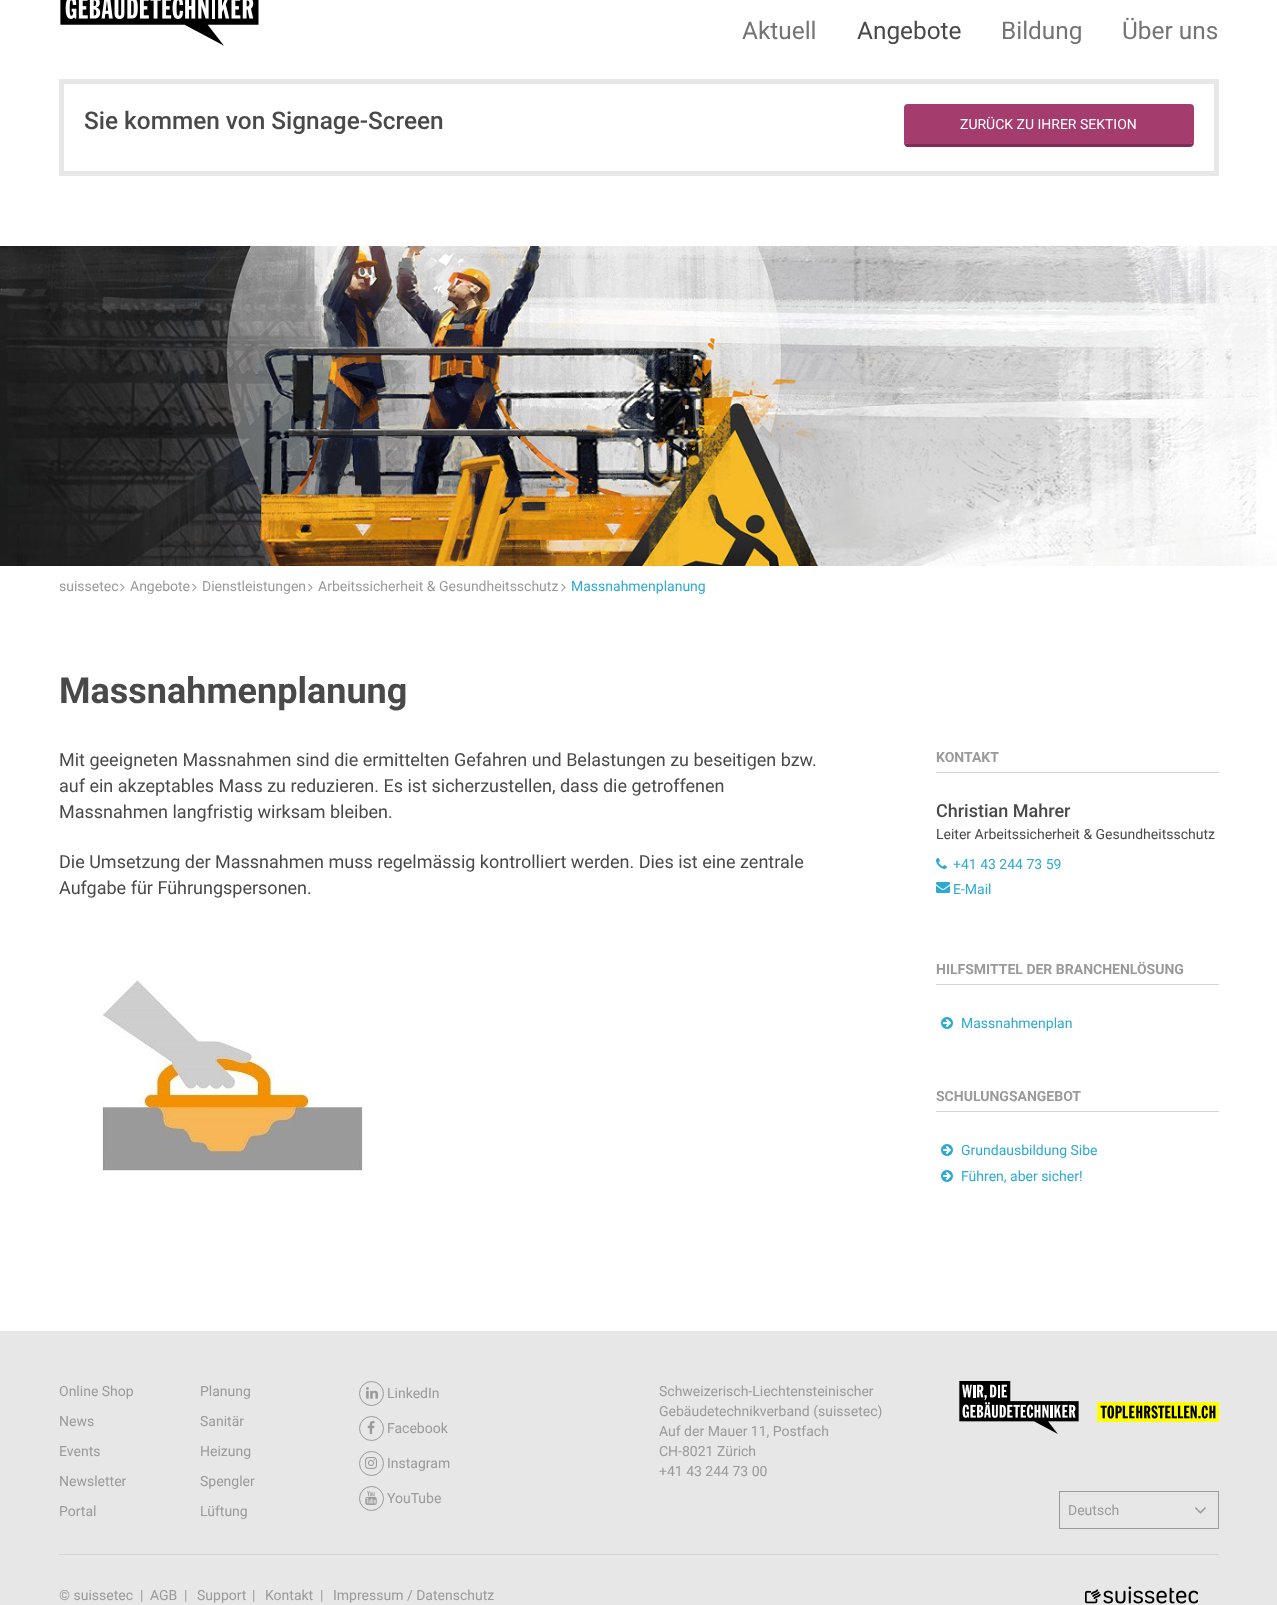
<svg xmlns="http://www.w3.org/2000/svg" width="1277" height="1605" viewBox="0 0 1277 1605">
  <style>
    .t1 { font: 24.4px Roboto; fill: #747474; }
    .t2 { font: 24.4px Roboto; fill: #4a494a; }
    .t3 { font: 500 24.4px Roboto; fill: #4a494a; }
    .t4 { font: 14px Roboto; fill: #fff; }
    .t5 { font: 14px Roboto; fill: #9b9a9b; }
    .t6 { font: 14px Roboto; fill: #2daad2; }
    .t7 { font: bold 36px Roboto; fill: #4a494a; }
    .t8 { font: 18px Roboto; fill: #4a494a; }
    .t9 { font: bold 14px Roboto; fill: #9b9a9b; }
    .t10 { font: 500 18px Roboto; fill: #4a494a; }
    .t11 { font: 14px Roboto; fill: #4a494a; }
  </style>
  <rect width="100%" height="100%" fill="#fff"/>
  <image x="60" y="0" width="199" height="46" href="images/1.png"/>
  <text x="742" y="39" class="t1">Aktuell</text>
  <text x="857" y="39" class="t2">Angebote</text>
  <text x="1001" y="39" class="t1">Bildung</text>
  <text x="1122" y="39" class="t1">Über uns</text>
  <rect x="61.5" y="81.5" width="1155" height="92" fill="none" stroke="#e7e7e7" stroke-width="5"/>
  <text x="84" y="129" class="t3">Sie kommen von Signage-Screen</text>
  <path d="M904 140C904 143 904 146 907 147H1190C1194 147 1194 143 1194 140C1194 142 1192 144 1190 144H908C906 144 904 142 904 140Z" fill="#802e55"/>
  <rect x="904" y="104" width="290" height="40" rx="4" fill="#a53c6e"/>
  <text x="960" y="129" class="t4">ZURÜCK ZU IHRER SEKTION</text>
  <image x="0" y="246" width="1277" height="320" href="images/2.png"/>
  <text x="59" y="591" class="t5">suissetec</text>
  <image x="120" y="583" width="5" height="9" href="images/3.png"/>
  <text x="130" y="591" class="t5">Angebote</text>
  <image x="192" y="583" width="5" height="9" href="images/3.png"/>
  <text x="202" y="591" class="t5">Dienstleistungen</text>
  <image x="308" y="583" width="5" height="9" href="images/3.png"/>
  <text x="318" y="591" class="t5">Arbeitssicherheit &amp; Gesundheitsschutz</text>
  <image x="561" y="583" width="5" height="9" href="images/3.png"/>
  <text x="571" y="591" class="t6">Massnahmenplanung</text>
  <text x="59" y="703" class="t7">Massnahmenplanung</text>
  <text x="59" y="766" class="t8">Mit geeigneten Massnahmen sind die ermittelten Gefahren und Belastungen zu beseitigen bzw.</text>
  <text x="59" y="792" class="t8">auf ein akzeptables Mass zu reduzieren. Es ist sicherzustellen, dass die getroffenen</text>
  <text x="59" y="818" class="t8">Massnahmen langfristig wirksam bleiben.</text>
  <text x="59" y="868" class="t8">Die Umsetzung der Massnahmen muss regelmässig kontrolliert werden. Dies ist eine zentrale</text>
  <text x="59" y="894" class="t8">Aufgabe für Führungspersonen.</text>
  <image x="99" y="978" width="264" height="197" href="images/4.png"/>
  <rect x="936" y="772" width="283" height="1" fill="#d3d6d8"/>
  <text x="936" y="762" class="t9">KONTAKT</text>
  <text x="936" y="817" class="t10">Christian Mahrer</text>
  <text x="936" y="839" class="t11">Leiter Arbeitssicherheit &amp; Gesundheitsschutz</text>
  <image x="936" y="858" width="11" height="11" href="images/5.png"/>
  <text x="953" y="869" class="t6">+41 43 244 73 59</text>
  <image x="936" y="882" width="14" height="11" href="images/6.png"/>
  <text x="953" y="894" class="t6">E-Mail</text>
  <rect x="936" y="984" width="283" height="1" fill="#d3d6d8"/>
  <text x="936" y="974" class="t9">HILFSMITTEL DER BRANCHENLÖSUNG</text>
  <image x="941" y="1017" width="12" height="12" href="images/7.png"/>
  <text x="961" y="1028" class="t6">Massnahmenplan</text>
  <rect x="936" y="1111" width="283" height="1" fill="#d3d6d8"/>
  <text x="936" y="1101" class="t9">SCHULUNGSANGEBOT</text>
  <image x="941" y="1144" width="12" height="12" href="images/7.png"/>
  <text x="961" y="1155" class="t6">Grundausbildung Sibe</text>
  <image x="941" y="1170" width="12" height="12" href="images/7.png"/>
  <text x="961" y="1181" class="t6">Führen, aber sicher!</text>
  <rect x="0" y="1331" width="1277" height="274" fill="#e7e7e7"/>
  <text x="59" y="1396" class="t5">Online Shop</text>
  <text x="200" y="1396" class="t5">Planung</text>
  <text x="59" y="1426" class="t5">News</text>
  <text x="200" y="1426" class="t5">Sanitär</text>
  <text x="59" y="1456" class="t5">Events</text>
  <text x="200" y="1456" class="t5">Heizung</text>
  <text x="59" y="1486" class="t5">Newsletter</text>
  <text x="200" y="1486" class="t5">Spengler</text>
  <text x="59" y="1516" class="t5">Portal</text>
  <text x="200" y="1516" class="t5">Lüftung</text>
  <circle cx="371.5" cy="1393.5" r="12" fill="none" stroke="#9b9a9b"/>
  <image x="366" y="1387" width="12" height="12" href="images/8.png"/>
  <text x="387" y="1398" class="t5">LinkedIn</text>
  <circle cx="371.5" cy="1428.5" r="12" fill="none" stroke="#9b9a9b"/>
  <image x="367" y="1421" width="8" height="13" href="images/9.png"/>
  <text x="387" y="1433" class="t5">Facebook</text>
  <circle cx="371.5" cy="1463.5" r="12" fill="none" stroke="#9b9a9b"/>
  <image x="365" y="1457" width="12" height="12" href="images/10.png"/>
  <text x="387" y="1468" class="t5">Instagram</text>
  <circle cx="371.5" cy="1498.5" r="12" fill="none" stroke="#9b9a9b"/>
  <image x="365" y="1491" width="12" height="14" href="images/11.png"/>
  <text x="387" y="1503" class="t5">YouTube</text>
  <text x="659" y="1396" class="t5">Schweizerisch-Liechtensteinischer</text>
  <text x="659" y="1416" class="t5">Gebäudetechnikverband (suissetec)</text>
  <text x="659" y="1436" class="t5">Auf der Mauer 11, Postfach</text>
  <text x="659" y="1456" class="t5">CH-8021 Zürich</text>
  <text x="659" y="1476" class="t5">+41 43 244 73 00</text>
  <image x="959" y="1381" width="120" height="53" href="images/12.png"/>
  <image x="1097" y="1402" width="122" height="20" href="images/13.png"/>
  <rect x="1059.5" y="1491.5" width="159" height="37" fill="none" stroke="#9b9a9b"/>
  <text x="1068" y="1515" class="t5">Deutsch</text>
  <image x="1195" y="1507" width="11" height="7" href="images/14.png"/>
  <rect x="59" y="1554" width="1160" height="1" fill="#d3d6d8"/>
  <text x="59" y="1600" class="t5" xml:space="preserve">© suissetec  |</text>
  <text x="150" y="1600" class="t5">AGB</text>
  <text x="184" y="1600" class="t5">|</text>
  <text x="197" y="1600" class="t5">Support</text>
  <text x="252" y="1600" class="t5">|</text>
  <text x="265" y="1600" class="t5">Kontakt</text>
  <text x="320" y="1600" class="t5">|</text>
  <text x="333" y="1600" class="t5">Impressum / Datenschutz</text>
  <image x="1085" y="1586" width="113" height="18" href="images/15.png"/>
</svg>
